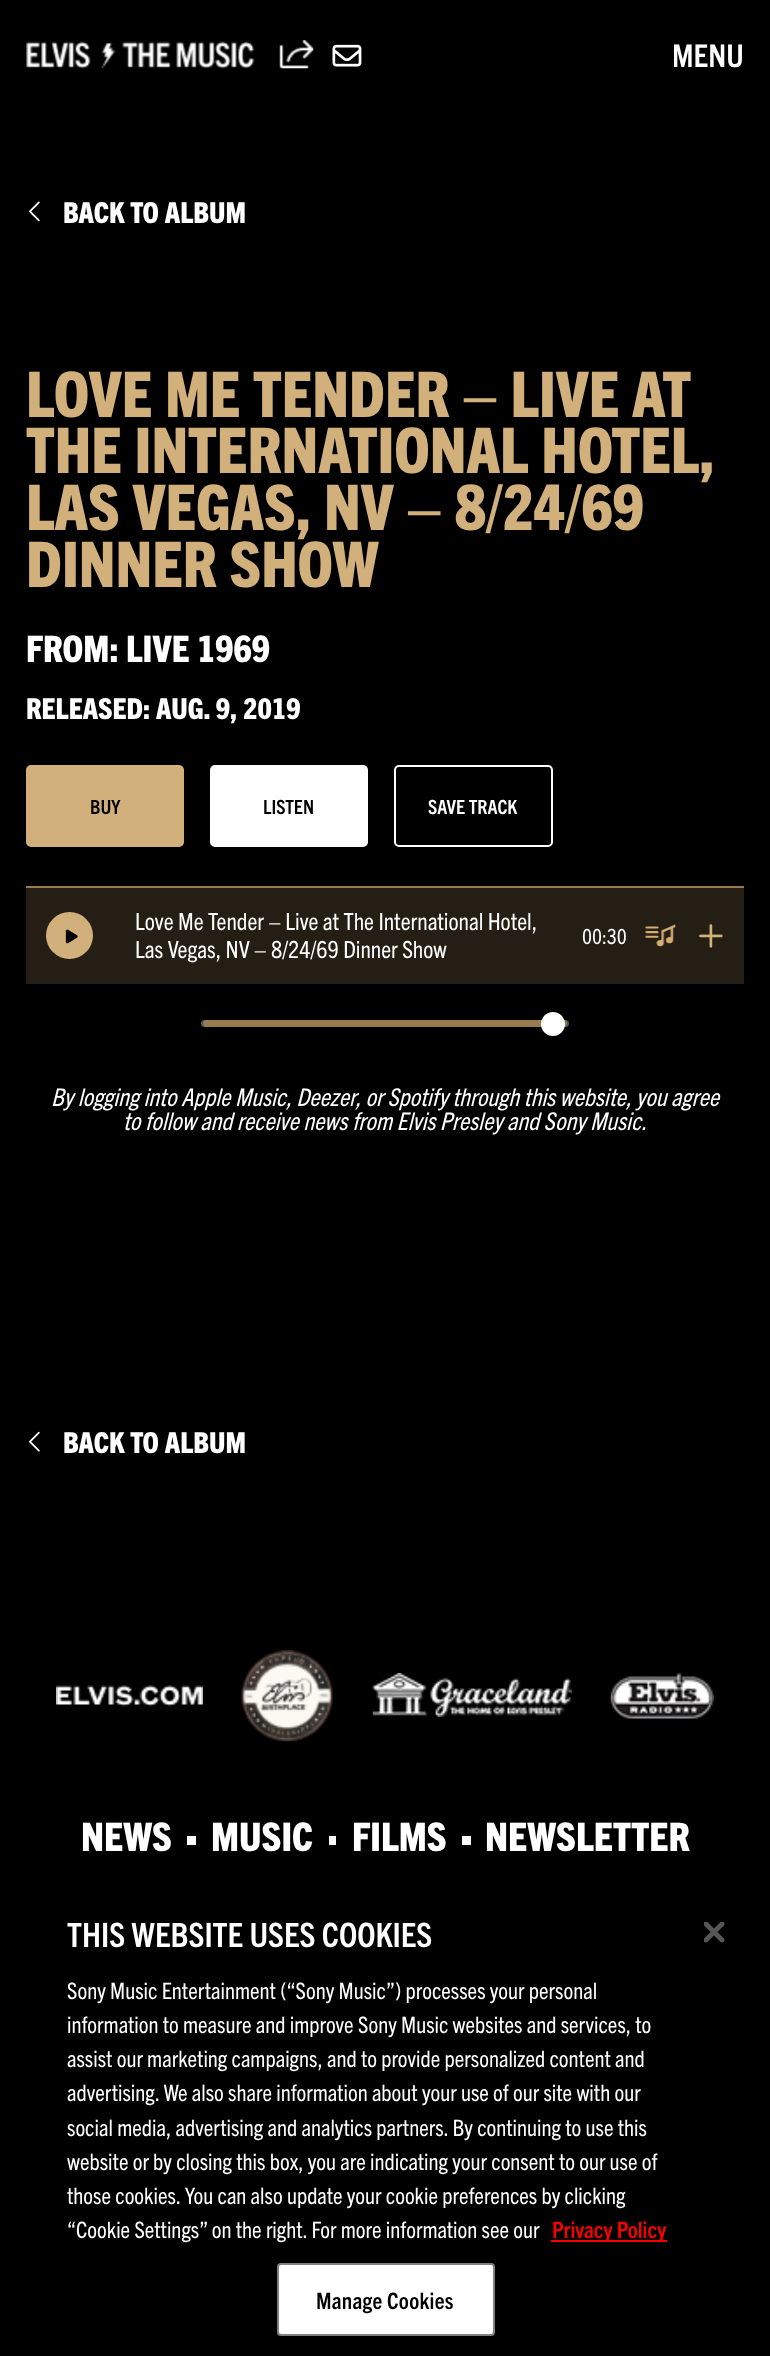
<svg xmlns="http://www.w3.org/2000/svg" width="770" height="2356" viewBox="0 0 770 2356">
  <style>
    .t1 { font: bold 31.5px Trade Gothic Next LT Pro; fill: #fff; }
    .t2 { font: 800 28.9px Trade Gothic Next LT Pro; fill: #fff; }
    .t3 { font: 800 63px Trade Gothic Next LT Pro; fill: #d1b07b; }
    .t4 { font: 800 36.75px Trade Gothic Next LT Pro; fill: #fff; }
    .t5 { font: bold 19.5px Trade Gothic Next LT Pro; fill: #000; }
    .t6 { font: bold 19.5px Trade Gothic Next LT Pro; fill: #fff; }
    .t7 { font: 23.6px Trade Gothic Next LT Pro; fill: #fff; }
    .t8 { font: 21px Trade Gothic Next LT Pro; fill: #fff; }
    .t9 { font: italic 24.5px Trade Gothic Next LT Pro; fill: #fff; }
    .t10 { font: 800 39.5px Trade Gothic Next LT Pro; fill: #fff; }
    .t11 { font: bold 33.6px Trade Gothic Next LT Pro; fill: #fff; }
    .t12 { font: 22.75px Trade Gothic Next LT Pro; fill: #fff; }
    .t13 { font: bold 22.75px Trade Gothic Next LT Pro; fill: #f90000; }
    .t14 { font: bold 22.75px Trade Gothic Next LT Pro; letter-spacing: 0.25px; fill: #000; }
  </style>
  <rect width="100%" height="100%" fill="#000"/>
  <image x="26" y="41" width="229" height="28" href="images/1.png"/>
  <image x="279" y="40" width="35" height="29" href="images/2.png"/>
  <image x="332" y="44" width="30" height="23" href="images/3.png"/>
  <text x="672" y="67" class="t1">MENU</text>
  <image x="29" y="201" width="11" height="21" href="images/4.png"/>
  <text x="63" y="223" class="t2">BACK TO ALBUM</text>
  <text x="26" y="417" class="t3">LOVE ME TENDER – LIVE AT</text>
  <text x="26" y="473" class="t3">THE INTERNATIONAL HOTEL,</text>
  <text x="26" y="530" class="t3">LAS VEGAS, NV – 8/24/69</text>
  <text x="26" y="587" class="t3">DINNER SHOW</text>
  <text x="26" y="662" class="t4">FROM: LIVE 1969</text>
  <text x="26" y="719" class="t2">RELEASED: AUG. 9, 2019</text>
  <rect x="27" y="766" width="156" height="80" rx="4" fill="#d1b07b" stroke="#d1b07b" stroke-width="2"/>
  <text x="90" y="814" class="t5">BUY</text>
  <rect x="211" y="766" width="156" height="80" rx="4" fill="#fff" stroke="#fff" stroke-width="2"/>
  <text x="263" y="814" class="t5">LISTEN</text>
  <rect x="395" y="766" width="157" height="80" rx="4" fill="none" stroke="#fff" stroke-width="2"/>
  <text x="428" y="814" class="t6">SAVE TRACK</text>
  <rect x="26" y="888" width="718" height="96" fill="#241e15"/>
  <rect x="26" y="886" width="718" height="2" fill="#997b50"/>
  <circle cx="69.5" cy="935.5" r="23.5" fill="#d1b07b"/>
  <image x="65" y="929" width="13" height="15" href="images/5.png"/>
  <text x="135" y="930" class="t7">Love Me Tender – Live at The International Hotel,</text>
  <text x="135" y="958" class="t7">Las Vegas, NV – 8/24/69 Dinner Show</text>
  <text x="582" y="944" class="t8">00:30</text>
  <image x="645" y="924" width="31" height="23" href="images/6.png"/>
  <image x="699" y="924" width="24" height="24" href="images/7.png"/>
  <rect x="202" y="1021" width="366" height="5" rx="2.5" fill="none" stroke="#525252" stroke-width="2"/>
  <rect x="204" y="1021" width="362" height="5" rx="2.5" fill="#997b50" stroke="#997b50" stroke-width="2"/>
  <circle cx="553" cy="1024" r="12" fill="#fff"/>
  <text x="51" y="1106" class="t9">By logging into Apple Music, Deezer, or Spotify through this website, you agree</text>
  <text x="123" y="1130" class="t9">to follow and receive news from Elvis Presley and Sony Music.</text>
  <image x="29" y="1431" width="11" height="21" href="images/8.png"/>
  <text x="63" y="1453" class="t2">BACK TO ALBUM</text>
  <image x="56" y="1685" width="147" height="22" href="images/9.png"/>
  <image x="241" y="1650" width="92" height="92" href="images/10.png"/>
  <image x="372" y="1673" width="201" height="44" href="images/11.png"/>
  <image x="610" y="1673" width="104" height="46" href="images/12.png"/>
  <text x="81" y="1851" class="t10">NEWS</text>
  <rect x="187" y="1836" width="9" height="9" fill="#fff"/>
  <text x="211" y="1851" class="t10">MUSIC</text>
  <rect x="329" y="1836" width="7" height="9" fill="#fff"/>
  <text x="352" y="1851" class="t10">FILMS</text>
  <rect x="462" y="1836" width="9" height="9" fill="#fff"/>
  <text x="485" y="1851" class="t10">NEWSLETTER</text>
  <text x="67" y="1947" class="t11">THIS WEBSITE USES COOKIES</text>
  <text x="67" y="1999" class="t12">Sony Music Entertainment (“Sony Music”) processes your personal</text>
  <text x="67" y="2033" class="t12">information to measure and improve Sony Music websites and services, to</text>
  <text x="67" y="2067" class="t12">assist our marketing campaigns, and to provide personalized content and</text>
  <text x="67" y="2101" class="t12">advertising. We also share information about your use of our site with our</text>
  <text x="67" y="2136" class="t12">social media, advertising and analytics partners. By continuing to use this</text>
  <text x="67" y="2170" class="t12">website or by closing this box, you are indicating your consent to our use of</text>
  <text x="67" y="2204" class="t12">those cookies. You can also update your cookie preferences by clicking</text>
  <text x="67" y="2238" class="t12">“Cookie Settings” on the right. For more information see our</text>
  <rect x="551" y="2240" width="116" height="2" fill="#f90000"/>
  <text x="552" y="2238" class="t13">Privacy Policy</text>
  <rect x="278" y="2264" width="216" height="71" rx="3" fill="#fff" stroke="#808080" stroke-width="2"/>
  <text x="316" y="2309" class="t14">Manage Cookies</text>
  <image x="704" y="1922" width="21" height="21" href="images/13.png"/>
</svg>
